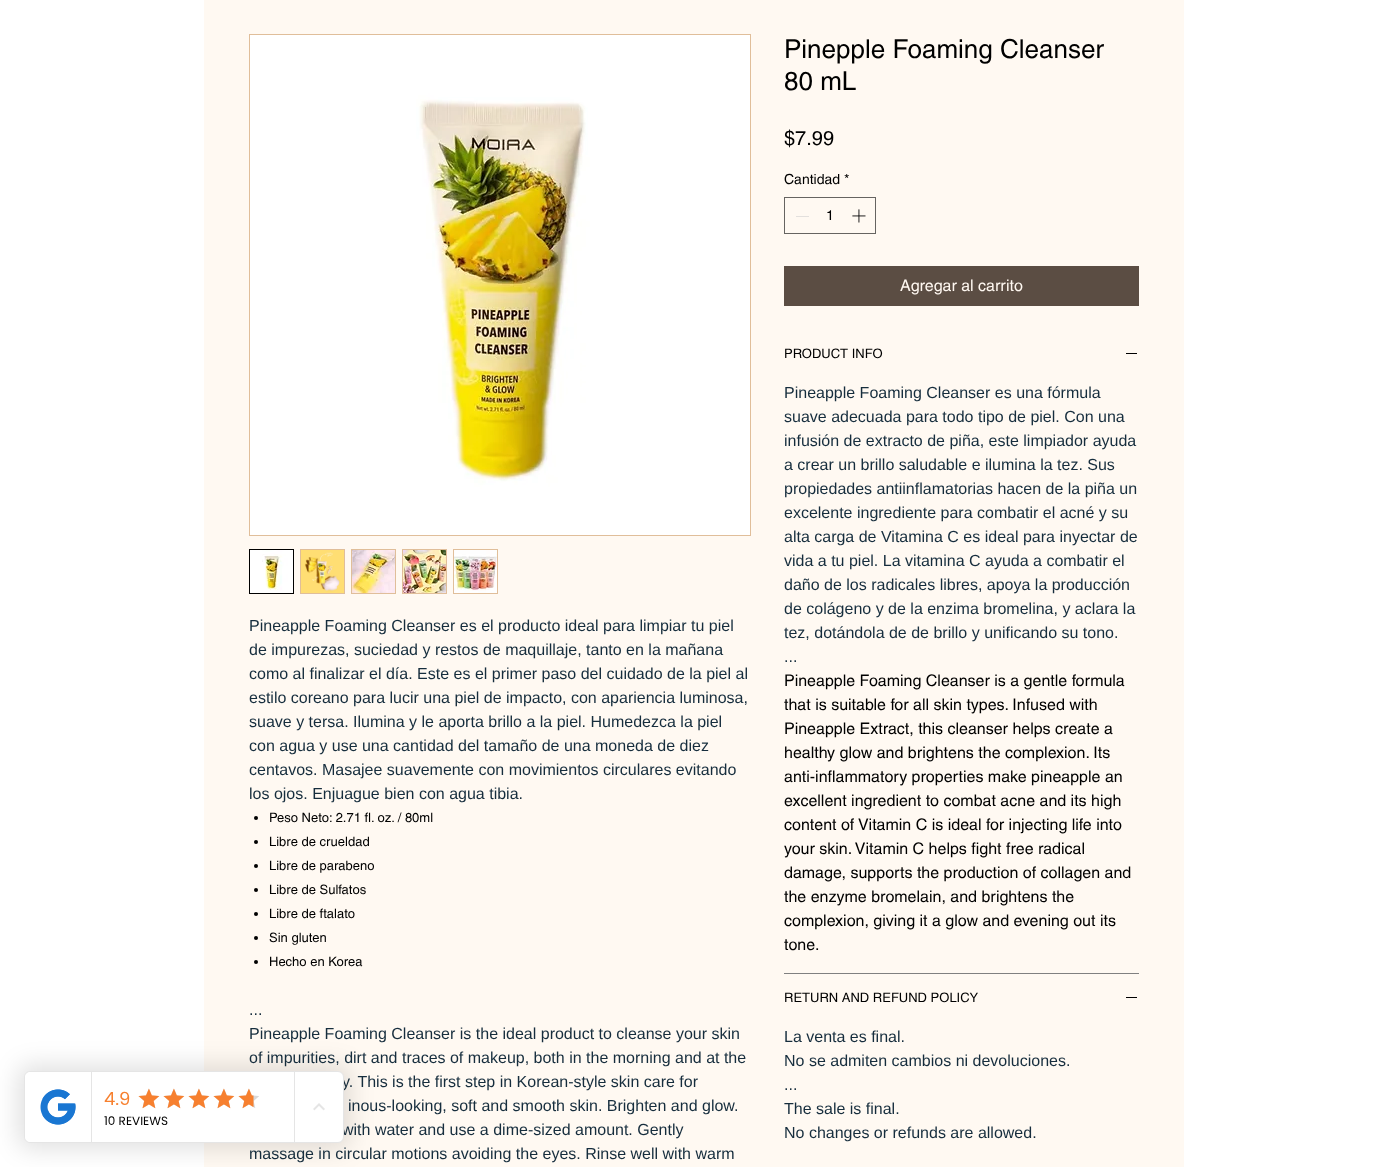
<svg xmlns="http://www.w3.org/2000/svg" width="1388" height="1167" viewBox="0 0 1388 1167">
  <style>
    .t1 { font: 16px Liberation Sans; fill: #162d3d; }
    .t2 { font: 18px Poppins; fill: #f7802f; }
    .t3 { font: 12px Poppins; fill: #000; }
    .t4 { font: 13px helvetica; fill: #000; }
    .t5 { font: 26px helvetica; fill: #000; }
    .t6 { font: 20px helvetica; fill: #000; }
    .t7 { font: 14px helvetica; fill: #000; }
    .t8 { font: 16px helvetica; fill: #fff8f1; }
    .t9 { font: 16px helvetica; fill: #000; }
  </style>
  <rect width="100%" height="100%" fill="#fff"/>
  <rect x="204" y="0" width="980" height="1167" fill="#fff9f2"/>
  <rect x="18" y="1065" width="332" height="84" rx="12" fill="#0000001f" filter="blur(12px)"/>
  <text x="342" y="1087" class="t1">y. This is the first step in Korean-style skin care for</text>
  <text x="342" y="1135" class="t1">with water and use a dime-sized amount. Gently</text>
  <rect x="24.5" y="1071.5" width="319" height="71" rx="5.5" fill="#fff" stroke="#e5e5e5"/>
  <path d="M31 1072H92V1142H31C27.5 1142 25 1139.5 25 1136V1078C25 1074.5 27.5 1072 31 1072Z" fill="#fff"/>
  <rect x="91" y="1072" width="1" height="70" fill="#e5e5e5"/>
  <image x="40" y="1089" width="36" height="36" href="images/1.png"/>
  <rect x="294" y="1072" width="1" height="70" fill="#e5e5e5"/>
  <text x="104" y="1105" class="t2">4.9</text>
  <image x="138" y="1089" width="21" height="19" href="images/3.png"/>
  <image x="138" y="1088" width="22" height="21" href="images/2.png"/>
  <image x="163" y="1089" width="21" height="19" href="images/3.png"/>
  <image x="163" y="1088" width="22" height="21" href="images/2.png"/>
  <image x="188" y="1089" width="21" height="19" href="images/3.png"/>
  <image x="188" y="1088" width="22" height="21" href="images/2.png"/>
  <image x="213" y="1089" width="21" height="19" href="images/3.png"/>
  <image x="213" y="1088" width="22" height="21" href="images/2.png"/>
  <image x="238" y="1089" width="21" height="19" href="images/3.png"/>
  <image x="238" y="1088" width="16" height="21" href="images/4.png"/>
  <text x="104" y="1125" class="t3">10 REVIEWS</text>
  <image x="313" y="1103" width="12" height="8" href="images/5.png"/>
  <rect x="249.5" y="34.5" width="501" height="501" fill="none" stroke="#e0be9a"/>
  <image x="250" y="35" width="500" height="500" href="images/6.png"/>
  <rect x="249.5" y="549.5" width="44" height="44" fill="none" stroke="#000"/>
  <image x="250" y="550" width="43" height="43" href="images/7.png"/>
  <rect x="300" y="549" width="45" height="45" fill="#e0be9a"/>
  <image x="301" y="550" width="43" height="43" href="images/8.png"/>
  <rect x="351" y="549" width="45" height="45" fill="#e0be9a"/>
  <image x="352" y="550" width="43" height="43" href="images/9.png"/>
  <rect x="402" y="549" width="45" height="45" fill="#e0be9a"/>
  <image x="403" y="550" width="43" height="43" href="images/10.png"/>
  <rect x="453" y="549" width="45" height="45" fill="#e0be9a"/>
  <image x="454" y="550" width="43" height="43" href="images/11.png"/>
  <text x="249" y="631" class="t1">Pineapple Foaming Cleanser es el producto ideal para limpiar tu piel</text>
  <text x="249" y="655" class="t1">de impurezas, suciedad y restos de maquillaje, tanto en la mañana</text>
  <text x="249" y="679" class="t1">como al finalizar el día. Este es el primer paso del cuidado de la piel al</text>
  <text x="249" y="703" class="t1">estilo coreano para lucir una piel de impacto, con apariencia luminosa,</text>
  <text x="249" y="727" class="t1">suave y tersa. Ilumina y le aporta brillo a la piel. Humedezca la piel</text>
  <text x="249" y="751" class="t1">con agua y use una cantidad del tamaño de una moneda de diez</text>
  <text x="249" y="775" class="t1">centavos. Masajee suavemente con movimientos circulares evitando</text>
  <text x="249" y="799" class="t1">los ojos. Enjuague bien con agua tibia.</text>
  <circle cx="256" cy="818" r="2" fill="#000"/>
  <text x="269" y="822" class="t4">Peso Neto: 2.71 fl. oz. / 80ml</text>
  <circle cx="256" cy="842" r="2" fill="#000"/>
  <text x="269" y="846" class="t4">Libre de crueldad</text>
  <circle cx="256" cy="866" r="2" fill="#000"/>
  <text x="269" y="870" class="t4">Libre de parabeno</text>
  <circle cx="256" cy="890" r="2" fill="#000"/>
  <text x="269" y="894" class="t4">Libre de Sulfatos</text>
  <circle cx="256" cy="914" r="2" fill="#000"/>
  <text x="269" y="918" class="t4">Libre de ftalato</text>
  <circle cx="256" cy="938" r="2" fill="#000"/>
  <text x="269" y="942" class="t4">Sin gluten</text>
  <circle cx="256" cy="962" r="2" fill="#000"/>
  <text x="269" y="966" class="t4">Hecho en Korea</text>
  <text x="249" y="1015" class="t1">...</text>
  <text x="249" y="1039" class="t1">Pineapple Foaming Cleanser is the ideal product to cleanse your skin</text>
  <text x="249" y="1063" class="t1">of impurities, dirt and traces of makeup, both in the morning and at the</text>
  <text x="348" y="1111" class="t1">inous-looking, soft and smooth skin. Brighten and glow.</text>
  <text x="249" y="1159" class="t1">massage in circular motions avoiding the eyes. Rinse well with warm</text>
  <text x="784" y="58" class="t5">Pinepple Foaming Cleanser</text>
  <text x="784" y="90" class="t5">80 mL</text>
  <text x="784" y="145" class="t6">$7.99</text>
  <text x="784" y="184" class="t7">Cantidad *</text>
  <rect x="784.5" y="197.5" width="91" height="36" fill="none" stroke="#666461"/>
  <rect x="796" y="216" width="13" height="1" fill="#e3e0dd"/>
  <text x="826" y="220" class="t7">1</text>
  <image x="852" y="209" width="14" height="14" href="images/12.png"/>
  <rect x="784" y="266" width="355" height="40" fill="#5b4d43"/>
  <text x="900" y="291" class="t8">Agregar al carrito</text>
  <rect x="784" y="973" width="355" height="1" fill="#808080"/>
  <text x="784" y="358" class="t4">PRODUCT INFO</text>
  <rect x="1126" y="353" width="11" height="1" fill="#000"/>
  <text x="784" y="398" class="t1">Pineapple Foaming Cleanser es una fórmula</text>
  <text x="784" y="422" class="t1">suave adecuada para todo tipo de piel. Con una</text>
  <text x="784" y="446" class="t1">infusión de extracto de piña, este limpiador ayuda</text>
  <text x="784" y="470" class="t1">a crear un brillo saludable e ilumina la tez. Sus</text>
  <text x="784" y="494" class="t1">propiedades antiinflamatorias hacen de la piña un</text>
  <text x="784" y="518" class="t1">excelente ingrediente para combatir el acné y su</text>
  <text x="784" y="542" class="t1">alta carga de Vitamina C es ideal para inyectar de</text>
  <text x="784" y="566" class="t1">vida a tu piel. La vitamina C ayuda a combatir el</text>
  <text x="784" y="590" class="t1">daño de los radicales libres, apoya la producción</text>
  <text x="784" y="614" class="t1">de colágeno y de la enzima bromelina, y aclara la</text>
  <text x="784" y="638" class="t1">tez, dotándola de de brillo y unificando su tono.</text>
  <text x="784" y="662" class="t1">...</text>
  <text x="784" y="686" class="t9">Pineapple Foaming Cleanser is a gentle formula</text>
  <text x="784" y="710" class="t9">that is suitable for all skin types. Infused with</text>
  <text x="784" y="734" class="t9">Pineapple Extract, this cleanser helps create a</text>
  <text x="784" y="758" class="t9">healthy glow and brightens the complexion. Its</text>
  <text x="784" y="782" class="t9">anti-inflammatory properties make pineapple an</text>
  <text x="784" y="806" class="t9">excellent ingredient to combat acne and its high</text>
  <text x="784" y="830" class="t9">content of Vitamin C is ideal for injecting life into</text>
  <text x="784" y="854" class="t9">your skin. Vitamin C helps fight free radical</text>
  <text x="784" y="878" class="t9">damage, supports the production of collagen and</text>
  <text x="784" y="902" class="t9">the enzyme bromelain, and brightens the</text>
  <text x="784" y="926" class="t9">complexion, giving it a glow and evening out its</text>
  <text x="784" y="950" class="t9">tone.</text>
  <text x="784" y="1002" class="t4">RETURN AND REFUND POLICY</text>
  <rect x="1126" y="997" width="11" height="1" fill="#000"/>
  <text x="784" y="1042" class="t1">La venta es final.</text>
  <text x="784" y="1066" class="t1">No se admiten cambios ni devoluciones.</text>
  <text x="784" y="1090" class="t1">...</text>
  <text x="784" y="1114" class="t1">The sale is final.</text>
  <text x="784" y="1138" class="t1">No changes or refunds are allowed.</text>
</svg>
